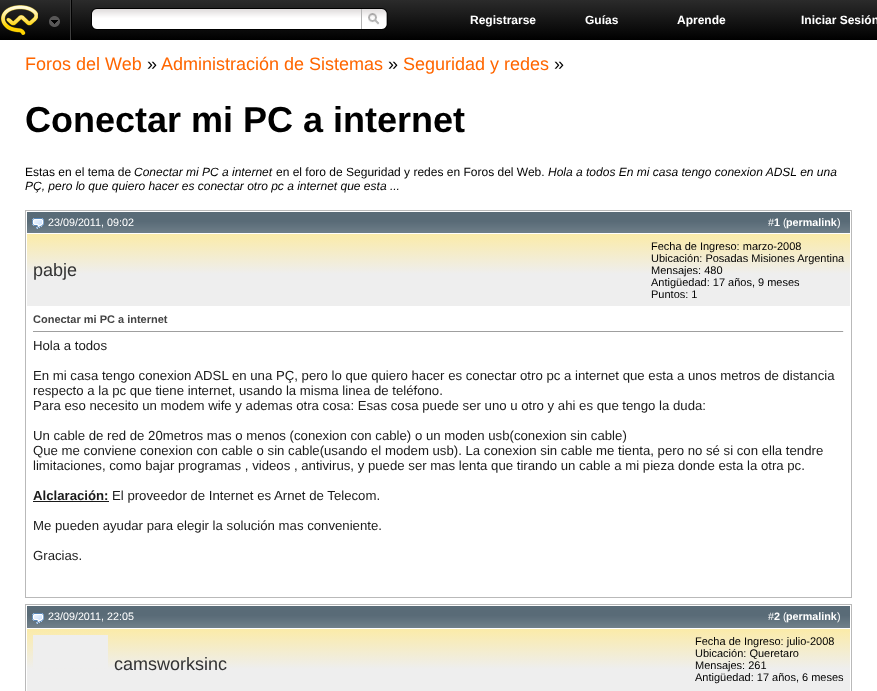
<svg xmlns="http://www.w3.org/2000/svg" width="877" height="691" viewBox="0 0 877 691">
  <style>
    .t1 { font: bold 12px Liberation Sans; fill: #fff; }
    .t2 { font: 18px Liberation Sans; fill: #f60; }
    .t3 { font: 18px Liberation Sans; fill: #000; }
    .t4 { font: bold 36px Liberation Sans; fill: #000; }
    .t5 { font: 12px Liberation Sans; fill: #000; }
    .t6 { font: italic 12px Liberation Sans; fill: #000; }
    .t7 { font: 10.75px Liberation Sans; fill: #fff; }
    .t8 { font: bold 10.75px Liberation Sans; fill: #fff; }
    .t9 { font: 18px Liberation Sans; fill: #333; }
    .t10 { font: 11px Liberation Sans; fill: #000; }
    .t11 { font: bold 11px Liberation Sans; fill: #444; }
    .t12 { font: 13.2px Liberation Sans; fill: #1a1a1a; }
    .t13 { font: bold 13.2px Liberation Sans; fill: #1a1a1a; }
  </style>
  <defs>
    <linearGradient id="g1" gradientUnits="userSpaceOnUse" x1="0" y1="0" x2="0" y2="40"><stop offset="0" stop-color="#2b2b2b"/><stop offset="1" stop-color="#000"/></linearGradient>
    <linearGradient id="g2" gradientUnits="userSpaceOnUse" x1="27" y1="234" x2="27" y2="274"><stop offset="0" stop-color="#fbeba8"/><stop offset="1" stop-color="#eee"/></linearGradient>
    <linearGradient id="g3" gradientUnits="userSpaceOnUse" x1="27" y1="629" x2="27" y2="669"><stop offset="0" stop-color="#fbeba8"/><stop offset="1" stop-color="#eee"/></linearGradient>
  </defs>
  <rect width="100%" height="100%" fill="#fff"/>
  <rect x="0" y="0" width="877" height="40" fill="url(#g1)"/>
  <rect x="71" y="0" width="1" height="40" fill="#000"/>
  <rect x="70" y="0" width="1" height="40" fill="#3f3f3f"/>
  <image x="1" y="5" width="59" height="30" href="images/1.png"/>
  <image x="91" y="8" width="270" height="22" href="images/2.png"/>
  <image x="361" y="8" width="27" height="22" href="images/3.png"/>
  <text x="470" y="24" class="t1">Registrarse</text>
  <text x="585" y="24" class="t1">Guías</text>
  <text x="677" y="24" class="t1">Aprende</text>
  <text x="801" y="24" class="t1">Iniciar Sesión</text>
  <text x="25" y="70" class="t2">Foros del Web</text>
  <text x="161" y="70" class="t2">Administración de Sistemas</text>
  <text x="403" y="70" class="t2">Seguridad y redes</text>
  <text x="554" y="70" class="t3">»</text>
  <text x="25" y="132" class="t4">Conectar mi PC a internet</text>
  <text x="147" y="70" class="t3">»</text>
  <text x="388" y="70" class="t3">»</text>
  <text x="25" y="176" class="t5">Estas en el tema de</text>
  <text x="134" y="176" class="t6">Conectar mi PC a internet</text>
  <text x="276" y="176" class="t5">en el foro de Seguridad y redes en Foros del Web.</text>
  <text x="548" y="176" class="t6">Hola a todos En mi casa tengo conexion ADSL en una</text>
  <text x="25" y="190" class="t6">PÇ, pero lo que quiero hacer es conectar otro pc a internet que esta ...</text>
  <rect x="25.5" y="210.5" width="826" height="387" fill="none" stroke="#b9b9b9"/>
  <image x="27" y="212" width="823" height="21" href="images/4.png"/>
  <image x="32" y="218" width="12" height="11" href="images/5.png"/>
  <text x="48" y="226" class="t7">23/09/2011, 09:02</text>
  <text x="768" y="226" class="t7">#</text>
  <text x="774" y="226" class="t8">1</text>
  <text x="783" y="226" class="t7">(</text>
  <text x="786" y="226" class="t8">permalink</text>
  <text x="837" y="226" class="t7">)</text>
  <rect x="27" y="234" width="823" height="72" fill="url(#g2)"/>
  <text x="33" y="276" class="t9">pabje</text>
  <text x="651" y="250" class="t10">Fecha de Ingreso: marzo-2008</text>
  <text x="651" y="262" class="t10">Ubicación: Posadas Misiones Argentina</text>
  <text x="651" y="274" class="t10">Mensajes: 480</text>
  <text x="651" y="286" class="t10">Antigüedad: 17 años, 9 meses</text>
  <text x="651" y="298" class="t10">Puntos: 1</text>
  <text x="33" y="323" class="t11">Conectar mi PC a internet</text>
  <rect x="33" y="331" width="811" height="1" fill="#9f9f9f"/>
  <rect x="843" y="331" width="1" height="1" fill="#eee"/>
  <text x="33" y="350" class="t12">Hola a todos</text>
  <text x="33" y="380" class="t12">En mi casa tengo conexion ADSL en una PÇ, pero lo que quiero hacer es conectar otro pc a internet que esta a unos metros de distancia</text>
  <text x="33" y="395" class="t12">respecto a la pc que tiene internet, usando la misma linea de teléfono.</text>
  <text x="33" y="410" class="t12">Para eso necesito un modem wife y ademas otra cosa: Esas cosa puede ser uno u otro y ahi es que tengo la duda:</text>
  <text x="33" y="440" class="t12">Un cable de red de 20metros mas o menos (conexion con cable) o un moden usb(conexion sin cable)</text>
  <text x="33" y="455" class="t12">Que me conviene conexion con cable o sin cable(usando el modem usb). La conexion sin cable me tienta, pero no sé si con ella tendre</text>
  <text x="33" y="470" class="t12">limitaciones, como bajar programas , videos , antivirus, y puede ser mas lenta que tirando un cable a mi pieza donde esta la otra pc.</text>
  <text x="33" y="500" class="t13">Alclaración:</text>
  <rect x="33" y="501" width="76" height="1" fill="#1a1a1a"/>
  <text x="112" y="500" class="t12">El proveedor de Internet es Arnet de Telecom.</text>
  <text x="33" y="530" class="t12">Me pueden ayudar para elegir la solución mas conveniente.</text>
  <text x="33" y="560" class="t12">Gracias.</text>
  <rect x="25.5" y="604.5" width="826" height="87" fill="none" stroke="#b9b9b9"/>
  <image x="27" y="606" width="823" height="22" href="images/6.png"/>
  <image x="32" y="613" width="12" height="11" href="images/7.png"/>
  <text x="48" y="620" class="t7">23/09/2011, 22:05</text>
  <text x="768" y="620" class="t7">#</text>
  <text x="774" y="620" class="t8">2</text>
  <text x="783" y="620" class="t7">(</text>
  <text x="786" y="620" class="t8">permalink</text>
  <text x="837" y="620" class="t7">)</text>
  <rect x="27" y="629" width="823" height="62" fill="url(#g3)"/>
  <rect x="33" y="635" width="75" height="33" fill="#eee"/>
  <text x="114" y="670" class="t9">camsworksinc</text>
  <text x="695" y="645" class="t10">Fecha de Ingreso: julio-2008</text>
  <text x="695" y="657" class="t10">Ubicación: Queretaro</text>
  <text x="695" y="669" class="t10">Mensajes: 261</text>
  <text x="695" y="681" class="t10">Antigüedad: 17 años, 6 meses</text>
</svg>
